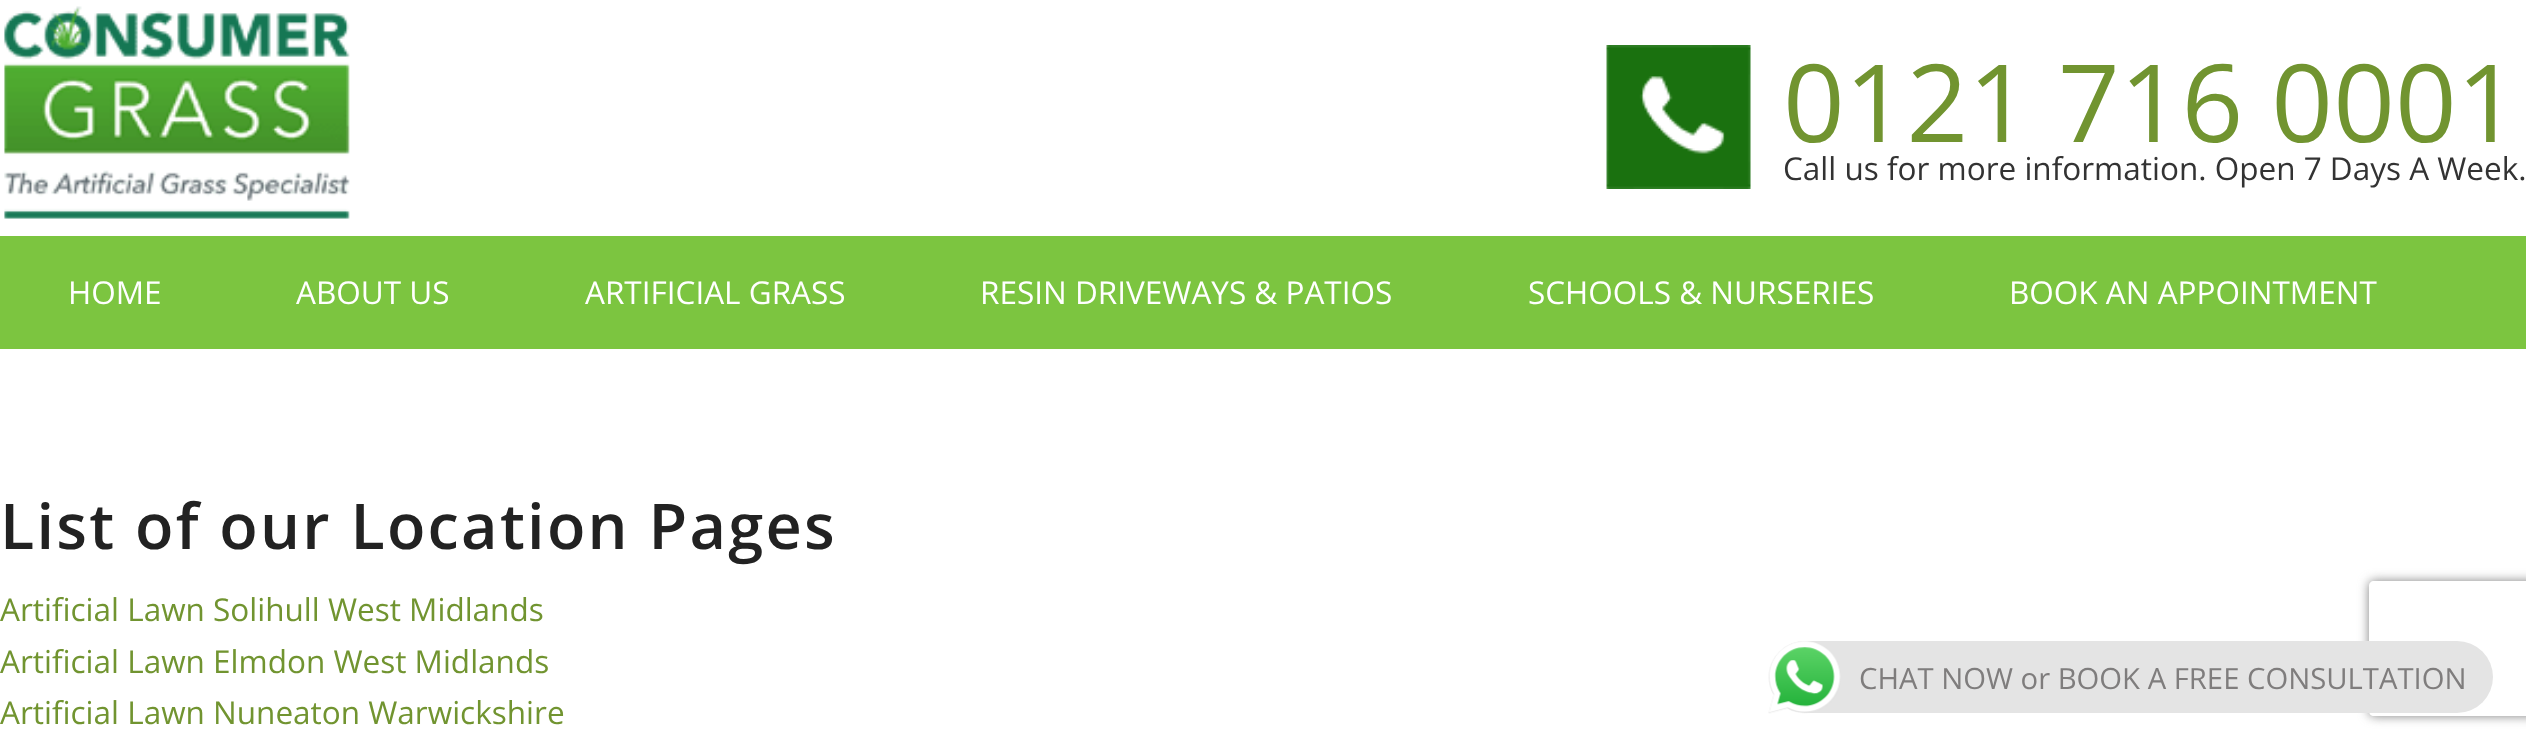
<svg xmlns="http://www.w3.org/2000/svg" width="2526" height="745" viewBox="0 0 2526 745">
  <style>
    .t1 { font: 108px Open Sans; fill: #719430; }
    .t2 { font: 31.5px Open Sans; fill: #333; }
    .t3 { font: 31.5px Open Sans; fill: #fff; }
    .t4 { font: 600 63px Open Sans; letter-spacing: 2.25px; fill: #222; }
    .t5 { font: 31.5px Open Sans; fill: #719430; }
    .t6 { font: 29.25px Open Sans; fill: #7f7d7d; }
  </style>
  <defs>
    <clipPath id="clip1"><path d="M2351 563H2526V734H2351ZM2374 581H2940C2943 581 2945 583 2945 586V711C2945 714 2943 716 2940 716H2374C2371 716 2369 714 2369 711V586C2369 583 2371 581 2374 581Z" clip-rule="evenodd"/></clipPath>
  </defs>
  <rect width="100%" height="100%" fill="#fff"/>
  <image x="4" y="6" width="346" height="213" href="images/1.png"/>
  <image x="1606" y="45" width="145" height="144" href="images/2.png"/>
  <text x="1783" y="142" class="t1">0121 716 0001</text>
  <text x="1783" y="180" class="t2">Call us for more information. Open 7 Days A Week.</text>
  <rect x="0" y="236" width="2526" height="113" fill="#7cc540"/>
  <text x="68" y="304" class="t3">HOME</text>
  <text x="296" y="304" class="t3">ABOUT US</text>
  <text x="585" y="304" class="t3">ARTIFICIAL GRASS</text>
  <text x="980" y="304" class="t3">RESIN DRIVEWAYS &amp; PATIOS</text>
  <text x="1528" y="304" class="t3">SCHOOLS &amp; NURSERIES</text>
  <text x="2009" y="304" class="t3">BOOK AN APPOINTMENT</text>
  <text x="0" y="549" class="t4">List of our Location Pages</text>
  <text x="0" y="621" class="t5">Artificial Lawn Solihull West Midlands</text>
  <text x="0" y="673" class="t5">Artificial Lawn Elmdon West Midlands</text>
  <text x="0" y="724" class="t5">Artificial Lawn Nuneaton Warwickshire</text>
  <g clip-path="url(#clip1)">
    <rect x="2369" y="581" width="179" height="135" rx="5" fill="#808080" filter="blur(5.5px)"/>
  </g>
  <rect x="1769" y="641" width="724" height="72" rx="36" fill="#e4e4e4"/>
  <image x="1768" y="641" width="73" height="73" href="images/3.png"/>
  <text x="1859" y="689" class="t6">CHAT NOW or BOOK A FREE CONSULTATION</text>
</svg>
